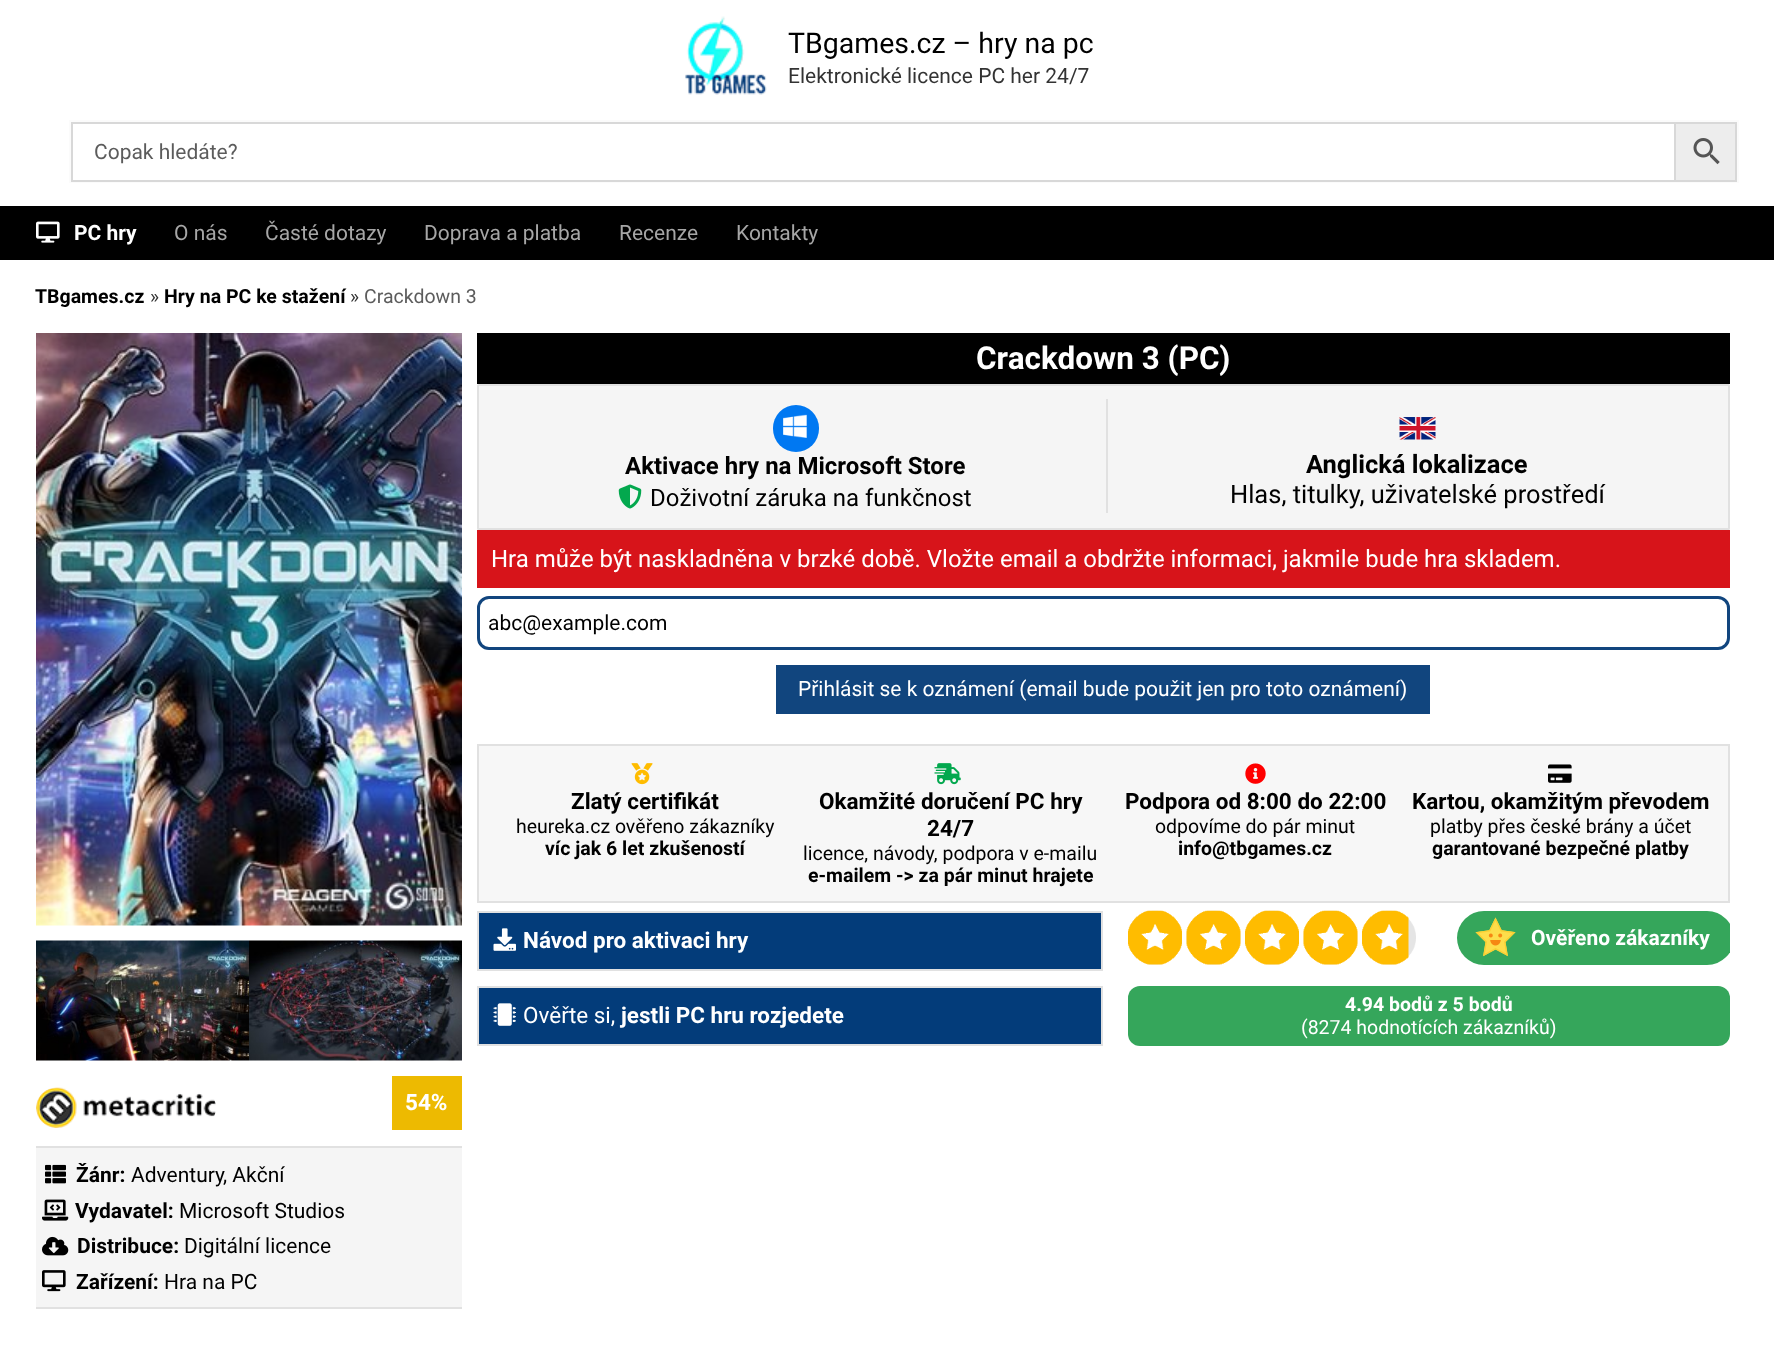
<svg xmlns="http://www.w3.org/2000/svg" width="1774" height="1355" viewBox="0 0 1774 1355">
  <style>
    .t1 { font: 28.5px Roboto; fill: #000; }
    .t2 { font: 21px Roboto; fill: #333; }
    .t3 { font: 21px Roboto; fill: #5c5c5c; }
    .t4 { font: bold 21px Roboto; fill: #fff; }
    .t5 { font: 21px Roboto; fill: #a6a6a6; }
    .t6 { font: bold 19.5px Roboto; fill: #000; }
    .t7 { font: 19.5px Roboto; fill: #333; }
    .t8 { font: 19.5px Roboto; fill: #5c5c5c; }
    .t9 { font: bold 31.5px Roboto; fill: #fff; }
    .t10 { font: bold 24px Roboto; fill: #000; }
    .t11 { font: 24px Roboto; fill: #000; }
    .t12 { font: bold 25.5px Roboto; fill: #000; }
    .t13 { font: 25.5px Roboto; fill: #000; }
    .t14 { font: 24px Roboto; fill: #fff; }
    .t15 { font: 21px Roboto; fill: #000; }
    .t16 { font: 21px Roboto; fill: #fff; }
    .t17 { font: bold 22.5px Roboto; fill: #000; }
    .t18 { font: 19.5px Roboto; fill: #000; }
    .t19 { font: bold 22.5px Roboto; fill: #fff; }
    .t20 { font: 22.5px Roboto; fill: #fff; }
    .t21 { font: bold 19.5px Roboto; fill: #fff; }
    .t22 { font: 19.5px Roboto; fill: #fff; }
    .t23 { font: bold 21px Roboto; fill: #000; }
  </style>
  <defs>
    <clipPath id="clip1"><rect x="1128" y="911" width="602" height="142"/></clipPath>
  </defs>
  <rect width="100%" height="100%" fill="#fff"/>
  <image x="685" y="16" width="82" height="79" href="images/1.png"/>
  <text x="788" y="53" class="t1">TBgames.cz – hry na pc</text>
  <text x="788" y="83" class="t2">Elektronické licence PC her 24/7</text>
  <rect x="70" y="121" width="1668" height="61" fill="none" stroke="#fbfbfb" stroke-width="2"/>
  <rect x="1675" y="123" width="61" height="58" fill="#ededed" stroke="#d8d8d8" stroke-width="2"/>
  <rect x="72" y="123" width="1603" height="58" fill="none" stroke="#d8d8d8" stroke-width="2"/>
  <text x="94" y="159" class="t3">Copak hledáte?</text>
  <image x="1693" y="138" width="27" height="27" href="images/2.png"/>
  <rect x="0" y="206" width="1774" height="54" fill="#000"/>
  <image x="36" y="221" width="24" height="22" href="images/3.png"/>
  <text x="74" y="240" class="t4">PC hry</text>
  <text x="174" y="240" class="t5">O nás</text>
  <text x="265" y="240" class="t5">Časté dotazy</text>
  <text x="424" y="240" class="t5">Doprava a platba</text>
  <text x="619" y="240" class="t5">Recenze</text>
  <text x="736" y="240" class="t5">Kontakty</text>
  <text x="35" y="303" class="t6">TBgames.cz</text>
  <text x="150" y="303" class="t7">»</text>
  <text x="164" y="303" class="t6">Hry na PC ke stažení</text>
  <text x="350" y="303" class="t7">»</text>
  <text x="364" y="303" class="t8">Crackdown 3</text>
  <rect x="477" y="333" width="1253" height="51" fill="#000"/>
  <text x="976" y="369" class="t9">Crackdown 3 (PC)</text>
  <rect x="478" y="385" width="1251" height="144" rx="0.5" fill="#f5f5f5" stroke="#e1e1e1" stroke-width="2"/>
  <rect x="1106" y="399" width="2" height="114" fill="#e1e1e1"/>
  <rect x="773" y="405" width="46" height="47" rx="23" fill="#0078f2"/>
  <image x="783" y="414" width="24" height="24" href="images/4.png"/>
  <text x="625" y="474" class="t10">Aktivace hry na Microsoft Store</text>
  <image x="618" y="484" width="24" height="25" href="images/5.png"/>
  <text x="650" y="506" class="t11">Doživotní záruka na funkčnost</text>
  <image x="1399" y="417" width="37" height="23" href="images/6.png"/>
  <text x="1306" y="473" class="t12">Anglická lokalizace</text>
  <text x="1230" y="503" class="t13">Hlas, titulky, uživatelské prostředí</text>
  <rect x="477" y="530" width="1253" height="58" fill="#d7141a"/>
  <text x="491" y="567" class="t14">Hra může být naskladněna v brzké době. Vložte email a obdržte informaci, jakmile bude hra skladem.</text>
  <rect x="478.5" y="597.5" width="1250" height="51" rx="10.5" fill="none" stroke="#11457e" stroke-width="3"/>
  <text x="488" y="630" class="t15">abc@example.com</text>
  <rect x="776" y="665" width="654" height="49" fill="#11457e"/>
  <text x="798" y="696" class="t16">Přihlásit se k oznámení (email bude použit jen pro toto oznámení)</text>
  <rect x="478" y="745" width="1251" height="157" fill="#f7f7f7" stroke="#e1e1e1" stroke-width="2"/>
  <image x="631" y="763" width="22" height="22" href="images/7.png"/>
  <text x="571" y="809" class="t17">Zlatý certifikát</text>
  <text x="516" y="833" class="t18">heureka.cz ověřeno zákazníky</text>
  <text x="545" y="855" class="t6">víc jak 6 let zkušeností</text>
  <image x="934" y="763" width="27" height="22" href="images/8.png"/>
  <text x="819" y="809" class="t17">Okamžité doručení PC hry</text>
  <text x="927" y="836" class="t17">24/7</text>
  <text x="803" y="860" class="t18">licence, návody, podpora v e-mailu</text>
  <text x="808" y="882" class="t6">e-mailem -&gt; za pár minut hrajete</text>
  <image x="1245" y="763" width="21" height="21" href="images/9.png"/>
  <text x="1125" y="809" class="t17">Podpora od 8:00 do 22:00</text>
  <text x="1155" y="833" class="t18">odpovíme do pár minut</text>
  <text x="1178" y="855" class="t6">info@tbgames.cz</text>
  <image x="1548" y="764" width="24" height="19" href="images/10.png"/>
  <text x="1412" y="809" class="t17">Kartou, okamžitým převodem</text>
  <text x="1430" y="833" class="t18">platby přes české brány a účet</text>
  <text x="1432" y="855" class="t6">garantované bezpečné platby</text>
  <rect x="478" y="912" width="624" height="58" fill="#033c7a" stroke="#e1e1e1" stroke-width="2"/>
  <image x="493" y="928" width="23" height="23" href="images/11.png"/>
  <text x="523" y="948" class="t19">Návod pro aktivaci hry</text>
  <rect x="478" y="987" width="624" height="58" fill="#033c7a" stroke="#e1e1e1" stroke-width="2"/>
  <image x="493" y="1003" width="23" height="23" href="images/12.png"/>
  <text x="523" y="1023" class="t20">Ověřte si,</text>
  <text x="621" y="1023" class="t19">jestli PC hru rozjedete</text>
  <image x="1128" y="910" width="54" height="55" href="images/13.png"/>
  <image x="1128" y="910" width="54" height="55" href="images/14.png"/>
  <image x="1186" y="910" width="55" height="55" href="images/15.png"/>
  <image x="1186" y="910" width="55" height="55" href="images/16.png"/>
  <image x="1245" y="910" width="54" height="55" href="images/17.png"/>
  <image x="1245" y="910" width="54" height="55" href="images/18.png"/>
  <image x="1303" y="910" width="55" height="55" href="images/19.png"/>
  <image x="1303" y="910" width="55" height="55" href="images/20.png"/>
  <image x="1362" y="910" width="54" height="55" href="images/13.png"/>
  <image x="1362" y="910" width="47" height="55" href="images/21.png"/>
  <g clip-path="url(#clip1)">
    <rect x="1457" y="911" width="277" height="54" rx="27" fill="#35a65b"/>
  </g>
  <image x="1475" y="917" width="41" height="40" href="images/22.png"/>
  <text x="1531" y="945" class="t4">Ověřeno zákazníky</text>
  <rect x="1128" y="986" width="602" height="60" rx="12" fill="#35a65b"/>
  <text x="1345" y="1011" class="t21">4.94 bodů z 5 bodů</text>
  <text x="1301" y="1034" class="t22">(8274 hodnotících zákazníků)</text>
  <image x="36" y="333" width="426" height="593" href="images/23.png"/>
  <image x="36" y="940" width="213" height="121" href="images/24.png"/>
  <image x="249" y="940" width="213" height="121" href="images/25.png"/>
  <image x="36" y="1087" width="180" height="41" href="images/26.png"/>
  <rect x="392" y="1076" width="70" height="54" fill="#edba01"/>
  <text x="405" y="1110" class="t19">54%</text>
  <rect x="36" y="1148" width="426" height="159" fill="#f5f5f5"/>
  <rect x="36" y="1146" width="426" height="2" fill="#e1e1e1"/>
  <rect x="36" y="1307" width="426" height="2" fill="#e1e1e1"/>
  <image x="45" y="1164" width="21" height="20" href="images/27.png"/>
  <text x="76" y="1182" class="t23">Žánr:</text>
  <text x="131" y="1182" class="t15">Adventury</text>
  <text x="223" y="1182" class="t15">, Akční</text>
  <image x="42" y="1199" width="27" height="22" href="images/28.png"/>
  <text x="75" y="1218" class="t23">Vydavatel:</text>
  <text x="179" y="1218" class="t15">Microsoft Studios</text>
  <image x="42" y="1236" width="27" height="20" href="images/29.png"/>
  <text x="77" y="1253" class="t23">Distribuce:</text>
  <text x="184" y="1253" class="t15">Digitální licence</text>
  <image x="42" y="1270" width="24" height="22" href="images/30.png"/>
  <text x="76" y="1289" class="t23">Zařízení:</text>
  <text x="164" y="1289" class="t15">Hra na PC</text>
</svg>
